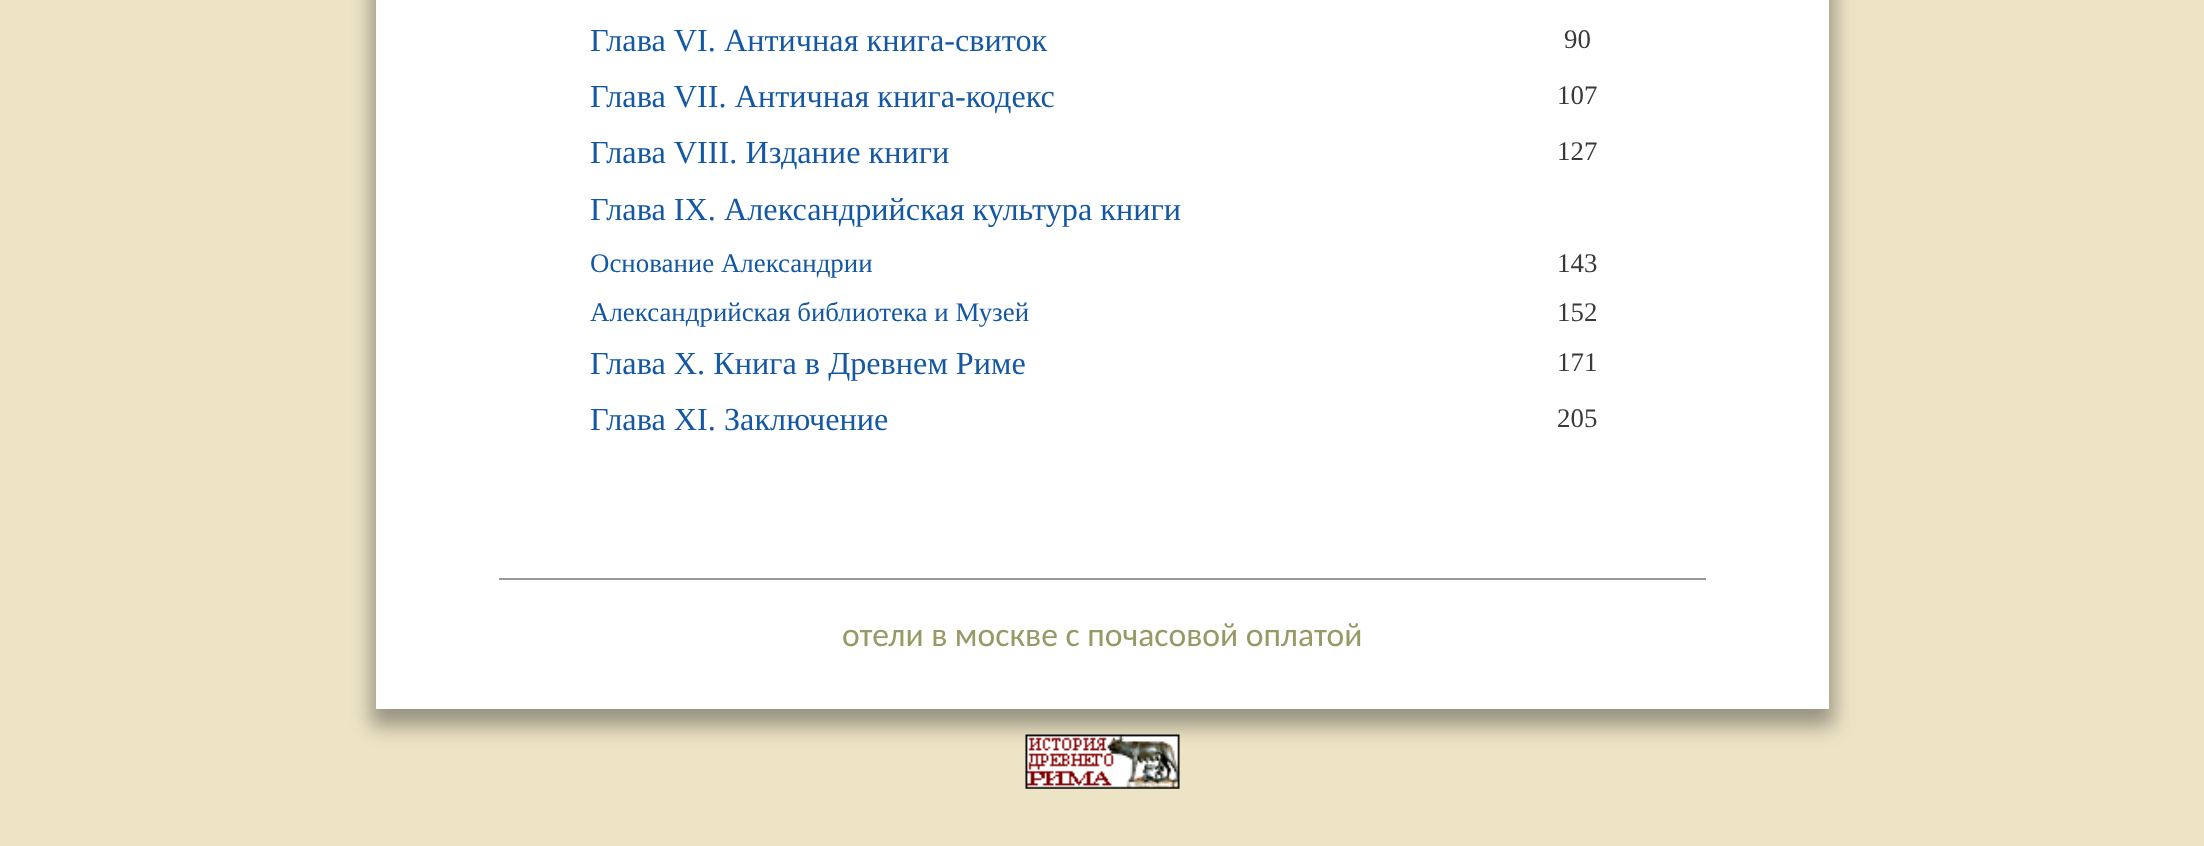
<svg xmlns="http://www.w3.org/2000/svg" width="2204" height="846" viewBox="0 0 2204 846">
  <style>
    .t1 { font: 32.25px Liberation Serif; fill: #1457a2; }
    .t2 { font: 26.9px Liberation Serif; fill: #393939; }
    .t3 { font: 26.9px Liberation Serif; fill: #1457a2; }
    .t4 { font: 33.6px Carlito; fill: #996; }
  </style>
  <rect width="100%" height="100%" fill="#ede4c5"/>
  <rect x="371" y="-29" width="1463" height="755" fill="#32323273" filter="blur(9.5px)"/>
  <rect x="376" y="0" width="1453" height="709" fill="#fff"/>
  <text x="590" y="51" class="t1">Глава VI. Античная книга-свиток</text>
  <text x="1564" y="48" class="t2">90</text>
  <text x="590" y="107" class="t1">Глава VII. Античная книга-кодекс</text>
  <text x="1557" y="104" class="t2">107</text>
  <text x="590" y="163" class="t1">Глава VIII. Издание книги</text>
  <text x="1557" y="160" class="t2">127</text>
  <text x="590" y="220" class="t1">Глава IX. Александрийская культура книги</text>
  <text x="590" y="272" class="t3">Основание Александрии</text>
  <text x="1557" y="272" class="t2">143</text>
  <text x="590" y="321" class="t3">Александрийская библиотека и Музей</text>
  <text x="1557" y="321" class="t2">152</text>
  <text x="590" y="374" class="t1">Глава X. Книга в Древнем Риме</text>
  <text x="1557" y="371" class="t2">171</text>
  <text x="590" y="430" class="t1">Глава XI. Заключение</text>
  <text x="1557" y="427" class="t2">205</text>
  <rect x="499" y="578" width="1207" height="2" fill="#999"/>
  <text x="842" y="646" class="t4">отели в москве с почасовой оплатой</text>
  <image x="1025" y="734" width="155" height="55" href="images/1.png"/>
</svg>
